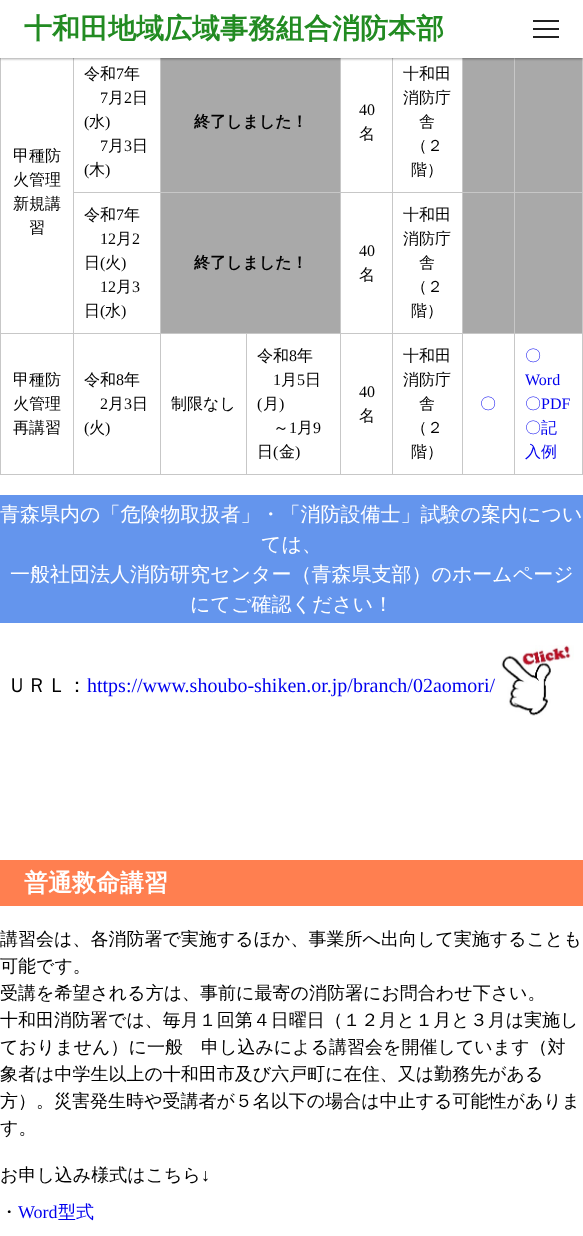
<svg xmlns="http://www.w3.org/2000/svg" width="583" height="1236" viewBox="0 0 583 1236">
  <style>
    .t1 { font: bold 28px WenQuanYi Zen Hei; fill: #228b22; }
    .t2 { font: 500 16px WenQuanYi Zen Hei; fill: #000; }
    .t3 { font: 16px Liberation Serif; fill: #000; }
    .t4 { font: bold 16px WenQuanYi Zen Hei; fill: #000; }
    .t5 { font: 500 16px WenQuanYi Zen Hei; fill: #00e; }
    .t6 { font: 16px Liberation Serif; fill: #00e; }
    .t7 { font: 500 20px WenQuanYi Zen Hei; fill: #fff; }
    .t8 { font: 500 20px WenQuanYi Zen Hei; fill: #000; }
    .t9 { font: 20px Liberation Serif; fill: #00e; }
    .t10 { font: bold 24px WenQuanYi Zen Hei; fill: #fff; }
    .t11 { font: 500 18px WenQuanYi Zen Hei; fill: #000; }
    .t12 { font: 18px Liberation Serif; fill: #000; }
    .t13 { font: 18px Liberation Serif; fill: #00e; }
    .t14 { font: 500 18px WenQuanYi Zen Hei; fill: #00e; }
  </style>
  <rect width="100%" height="100%" fill="#fff"/>
  <rect x="161" y="58" width="179" height="134" fill="#a9a9a9"/>
  <rect x="514" y="192" width="69" height="1" fill="#c7c7c7"/>
  <rect x="514" y="333" width="69" height="1" fill="#c7c7c7"/>
  <rect x="582" y="333" width="1" height="142" fill="#c7c7c7"/>
  <rect x="514" y="474" width="69" height="1" fill="#c7c7c7"/>
  <rect x="514" y="333" width="1" height="142" fill="#c7c7c7"/>
  <rect x="462" y="333" width="53" height="1" fill="#c7c7c7"/>
  <rect x="514" y="192" width="1" height="142" fill="#c7c7c7"/>
  <rect x="462" y="192" width="53" height="1" fill="#c7c7c7"/>
  <rect x="462" y="474" width="53" height="1" fill="#c7c7c7"/>
  <rect x="462" y="333" width="1" height="142" fill="#c7c7c7"/>
  <rect x="392" y="333" width="71" height="1" fill="#c7c7c7"/>
  <rect x="462" y="192" width="1" height="142" fill="#c7c7c7"/>
  <rect x="392" y="192" width="71" height="1" fill="#c7c7c7"/>
  <rect x="392" y="474" width="71" height="1" fill="#c7c7c7"/>
  <rect x="392" y="333" width="1" height="142" fill="#c7c7c7"/>
  <rect x="340" y="333" width="53" height="1" fill="#c7c7c7"/>
  <rect x="392" y="192" width="1" height="142" fill="#c7c7c7"/>
  <rect x="340" y="192" width="53" height="1" fill="#c7c7c7"/>
  <rect x="340" y="474" width="53" height="1" fill="#c7c7c7"/>
  <rect x="340" y="333" width="1" height="142" fill="#c7c7c7"/>
  <rect x="246" y="333" width="95" height="1" fill="#c7c7c7"/>
  <rect x="340" y="192" width="1" height="142" fill="#c7c7c7"/>
  <rect x="160" y="192" width="181" height="1" fill="#c7c7c7"/>
  <rect x="246" y="474" width="95" height="1" fill="#c7c7c7"/>
  <rect x="246" y="333" width="1" height="142" fill="#c7c7c7"/>
  <rect x="160" y="333" width="87" height="1" fill="#c7c7c7"/>
  <rect x="160" y="474" width="87" height="1" fill="#c7c7c7"/>
  <rect x="160" y="333" width="1" height="142" fill="#c7c7c7"/>
  <rect x="73" y="333" width="88" height="1" fill="#c7c7c7"/>
  <rect x="160" y="192" width="1" height="142" fill="#c7c7c7"/>
  <rect x="73" y="192" width="88" height="1" fill="#c7c7c7"/>
  <rect x="160" y="51" width="1" height="142" fill="#c7c7c7"/>
  <rect x="340" y="51" width="1" height="142" fill="#c7c7c7"/>
  <rect x="392" y="51" width="1" height="142" fill="#c7c7c7"/>
  <rect x="463" y="58" width="51" height="134" fill="#a9a9a9"/>
  <rect x="462" y="51" width="1" height="142" fill="#c7c7c7"/>
  <rect x="515" y="58" width="67" height="134" fill="#a9a9a9"/>
  <rect x="514" y="51" width="1" height="142" fill="#c7c7c7"/>
  <rect x="73" y="474" width="88" height="1" fill="#c7c7c7"/>
  <rect x="73" y="333" width="1" height="142" fill="#c7c7c7"/>
  <rect x="0" y="333" width="74" height="1" fill="#c7c7c7"/>
  <rect x="73" y="51" width="1" height="283" fill="#c7c7c7"/>
  <rect x="582" y="51" width="1" height="283" fill="#c7c7c7"/>
  <rect x="0" y="474" width="74" height="1" fill="#c7c7c7"/>
  <rect x="0" y="51" width="1" height="424" fill="#c7c7c7"/>
  <rect x="0" y="1" width="583" height="58" fill="#0000003d" filter="blur(1px)"/>
  <rect x="0" y="1" width="583" height="58" fill="#0000001f" filter="blur(1.5px)"/>
  <rect x="0" y="0" width="583" height="58" fill="#fff"/>
  <text x="24" y="38" class="t1">十和田地域広域事務組合消防本部</text>
  <rect x="533" y="28" width="26" height="2" fill="#212121"/>
  <rect x="533" y="20" width="26" height="2" fill="#212121"/>
  <rect x="533" y="36" width="26" height="2" fill="#212121"/>
  <text x="84" y="79" class="t2">令和</text>
  <text x="116" y="79" class="t3">7</text>
  <text x="124" y="79" class="t2">年</text>
  <text x="100" y="103" class="t3">7</text>
  <text x="108" y="103" class="t2">月</text>
  <text x="124" y="103" class="t3">2</text>
  <text x="132" y="103" class="t2">日</text>
  <text x="84" y="127" class="t3">(</text>
  <text x="89" y="127" class="t2">水</text>
  <text x="105" y="127" class="t3">)</text>
  <text x="100" y="151" class="t3">7</text>
  <text x="108" y="151" class="t2">月</text>
  <text x="124" y="151" class="t3">3</text>
  <text x="132" y="151" class="t2">日</text>
  <text x="84" y="175" class="t3">(</text>
  <text x="89" y="175" class="t2">木</text>
  <text x="105" y="175" class="t3">)</text>
  <text x="194" y="127" class="t4">終了しました！</text>
  <text x="359" y="115" class="t3">40</text>
  <text x="359" y="139" class="t2">名</text>
  <text x="403" y="79" class="t2">十和田</text>
  <text x="403" y="103" class="t2">消防庁</text>
  <text x="419" y="127" class="t2">舎</text>
  <text x="411" y="151" class="t2">（２</text>
  <text x="411" y="175" class="t2">階）</text>
  <text x="13" y="161" class="t2">甲種防</text>
  <text x="13" y="185" class="t2">火管理</text>
  <text x="13" y="209" class="t2">新規講</text>
  <text x="29" y="233" class="t2">習</text>
  <text x="84" y="220" class="t2">令和</text>
  <text x="116" y="220" class="t3">7</text>
  <text x="124" y="220" class="t2">年</text>
  <text x="100" y="244" class="t3">12</text>
  <text x="116" y="244" class="t2">月</text>
  <text x="132" y="244" class="t3">2</text>
  <text x="84" y="268" class="t2">日</text>
  <text x="100" y="268" class="t3">(</text>
  <text x="105" y="268" class="t2">火</text>
  <text x="121" y="268" class="t3">)</text>
  <text x="100" y="292" class="t3">12</text>
  <text x="116" y="292" class="t2">月</text>
  <text x="132" y="292" class="t3">3</text>
  <text x="84" y="316" class="t2">日</text>
  <text x="100" y="316" class="t3">(</text>
  <text x="105" y="316" class="t2">水</text>
  <text x="121" y="316" class="t3">)</text>
  <rect x="161" y="193" width="179" height="140" fill="#a9a9a9"/>
  <text x="194" y="268" class="t4">終了しました！</text>
  <text x="359" y="256" class="t3">40</text>
  <text x="359" y="280" class="t2">名</text>
  <text x="403" y="220" class="t2">十和田</text>
  <text x="403" y="244" class="t2">消防庁</text>
  <text x="419" y="268" class="t2">舎</text>
  <text x="411" y="292" class="t2">（２</text>
  <text x="411" y="316" class="t2">階）</text>
  <rect x="463" y="193" width="51" height="140" fill="#a9a9a9"/>
  <rect x="515" y="193" width="67" height="140" fill="#a9a9a9"/>
  <text x="13" y="385" class="t2">甲種防</text>
  <text x="13" y="409" class="t2">火管理</text>
  <text x="13" y="433" class="t2">再講習</text>
  <text x="84" y="385" class="t2">令和</text>
  <text x="116" y="385" class="t3">8</text>
  <text x="124" y="385" class="t2">年</text>
  <text x="100" y="409" class="t3">2</text>
  <text x="108" y="409" class="t2">月</text>
  <text x="124" y="409" class="t3">3</text>
  <text x="132" y="409" class="t2">日</text>
  <text x="84" y="433" class="t3">(</text>
  <text x="89" y="433" class="t2">火</text>
  <text x="105" y="433" class="t3">)</text>
  <text x="171" y="409" class="t2">制限なし</text>
  <text x="257" y="361" class="t2">令和</text>
  <text x="289" y="361" class="t3">8</text>
  <text x="297" y="361" class="t2">年</text>
  <text x="273" y="385" class="t3">1</text>
  <text x="281" y="385" class="t2">月</text>
  <text x="297" y="385" class="t3">5</text>
  <text x="305" y="385" class="t2">日</text>
  <text x="257" y="409" class="t3">(</text>
  <text x="263" y="409" class="t2">月</text>
  <text x="279" y="409" class="t3">)</text>
  <text x="273" y="433" class="t2">～</text>
  <text x="289" y="433" class="t3">1</text>
  <text x="297" y="433" class="t2">月</text>
  <text x="313" y="433" class="t3">9</text>
  <text x="257" y="457" class="t2">日</text>
  <text x="273" y="457" class="t3">(</text>
  <text x="279" y="457" class="t2">金</text>
  <text x="295" y="457" class="t3">)</text>
  <text x="359" y="397" class="t3">40</text>
  <text x="359" y="421" class="t2">名</text>
  <text x="403" y="361" class="t2">十和田</text>
  <text x="403" y="385" class="t2">消防庁</text>
  <text x="419" y="409" class="t2">舎</text>
  <text x="411" y="433" class="t2">（２</text>
  <text x="411" y="457" class="t2">階）</text>
  <text x="480" y="409" class="t5">〇</text>
  <text x="525" y="361" class="t5">〇</text>
  <text x="525" y="385" class="t6">Word</text>
  <text x="525" y="409" class="t5">〇</text>
  <text x="541" y="409" class="t6">PDF</text>
  <text x="525" y="433" class="t5">〇記</text>
  <text x="525" y="457" class="t5">入例</text>
  <rect x="0" y="495" width="583" height="128" fill="#6495ed"/>
  <text x="0" y="521" class="t7">青森県内の「危険物取扱者」・「消防設備士」試験の案内につい</text>
  <text x="261" y="551" class="t7">ては、</text>
  <text x="10" y="581" class="t7">一般社団法人消防研究センター（青森県支部）のホームページ</text>
  <text x="190" y="611" class="t7">にてご確認ください！</text>
  <text x="7" y="692" class="t8">ＵＲＬ：</text>
  <text x="87" y="692" class="t9">https://www.shoubo-shiken.or.jp/branch/02aomori/</text>
  <image x="501" y="645" width="73" height="71" href="images/1.png"/>
  <rect x="0" y="860" width="583" height="46" fill="#ff7f50"/>
  <text x="24" y="891" class="t10">普通救命講習</text>
  <text x="0" y="945" class="t11">講習会は、各消防署で実施するほか、事業所へ出向して実施することも</text>
  <text x="0" y="972" class="t11">可能です。</text>
  <text x="0" y="999" class="t11">受講を希望される方は、事前に最寄の消防署にお問合わせ下さい。</text>
  <text x="0" y="1026" class="t11">十和田消防署では、毎月１回第４日曜日（１２月と１月と３月は実施し</text>
  <text x="0" y="1053" class="t11">ておりません）に一般　申し込みによる講習会を開催しています（対</text>
  <text x="0" y="1080" class="t11">象者は中学生以上の十和田市及び六戸町に在住、又は勤務先がある</text>
  <text x="0" y="1107" class="t11">方）。災害発生時や受講者が５名以下の場合は中止する可能性がありま</text>
  <text x="0" y="1134" class="t11">す。</text>
  <text x="0" y="1181" class="t11">お申し込み様式はこちら</text>
  <text x="201" y="1181" class="t12">↓</text>
  <text x="0" y="1218" class="t11">・</text>
  <text x="18" y="1218" class="t13">Word</text>
  <text x="58" y="1218" class="t14">型式</text>
</svg>
